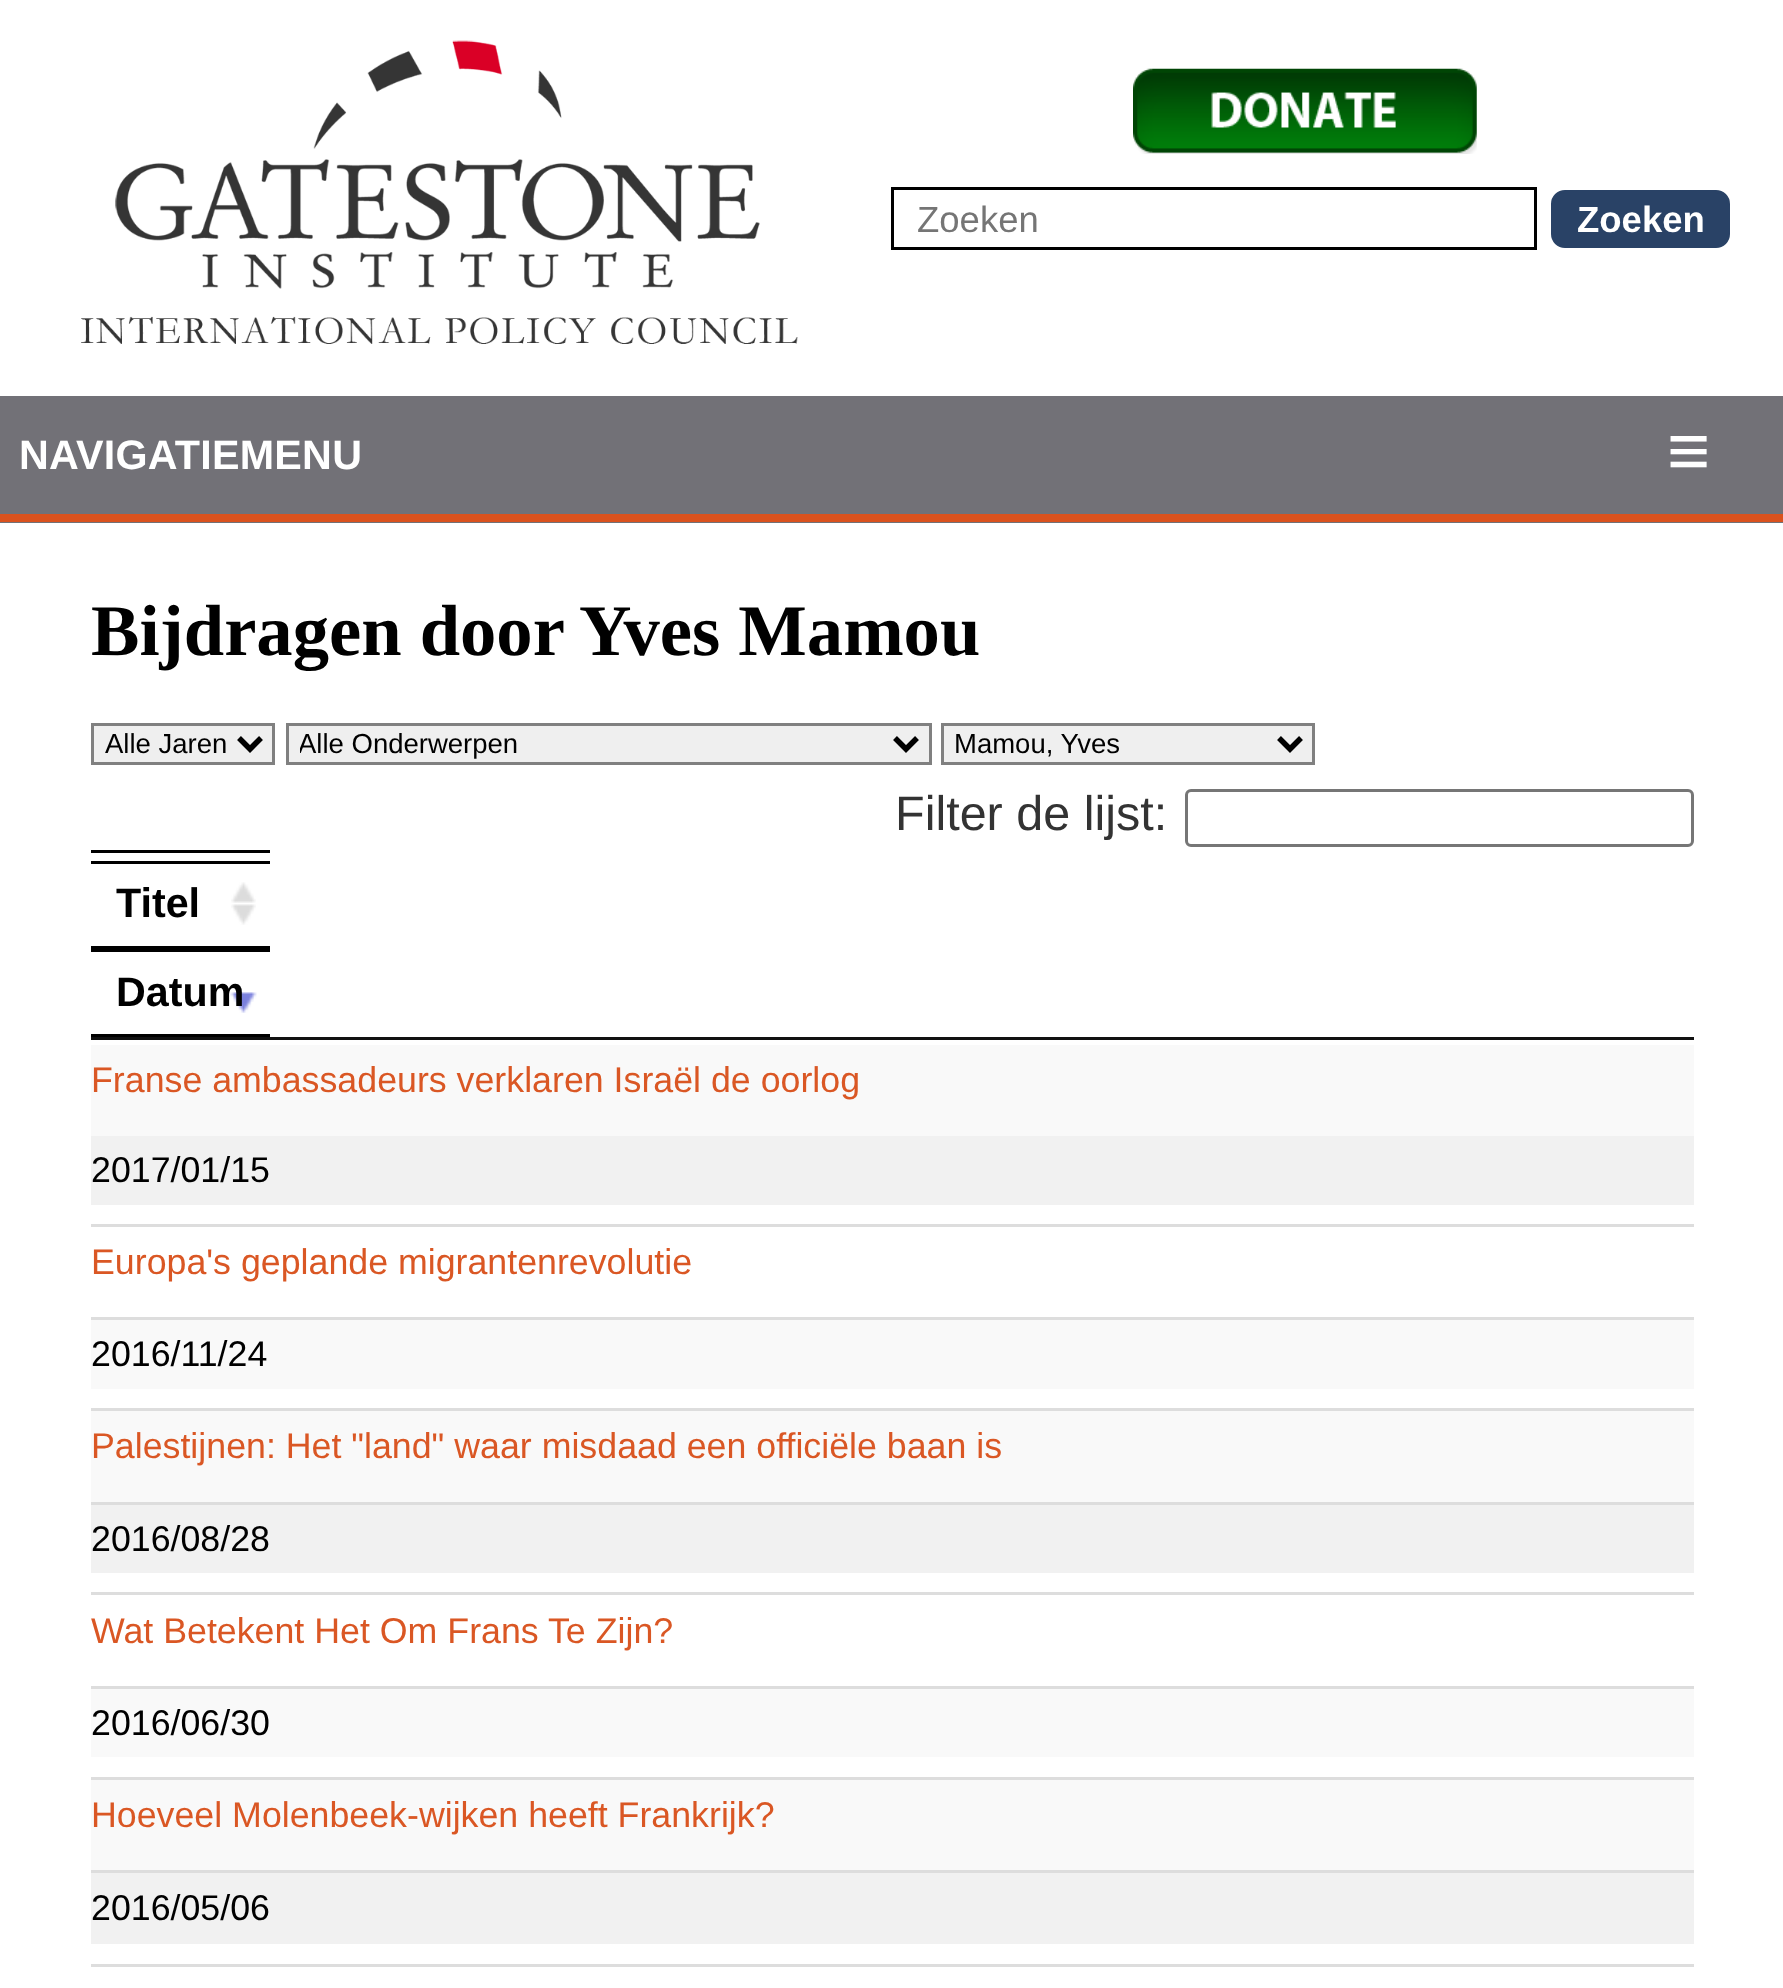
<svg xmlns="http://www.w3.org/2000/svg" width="1783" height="1988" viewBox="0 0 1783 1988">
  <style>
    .t1 { font: 36.5px Liberation Sans; fill: #757575; }
    .t2 { font: bold 36.5px Liberation Sans; fill: #fff; }
    .t3 { font: bold 41.25px Liberation Sans; letter-spacing: 0.25px; fill: #fff; }
    .t4 { font: bold 74px Liberation Sans; letter-spacing: 0.25px; fill: #fff; }
    .t5 { font: bold 72.6px Liberation Serif; fill: #000; }
    .t6 { font: 27.5px Liberation Sans; fill: #000; }
    .t7 { font: 48.5px Liberation Sans; fill: #333; }
    .t8 { font: 35.75px Liberation Sans; fill: #da5724; }
    .t9 { font: 35.75px Liberation Sans; fill: #000; }
    .t10 { font: bold 41.25px Liberation Sans; fill: #000; }
  </style>
  <defs>
    <clipPath id="clip1"><rect x="300" y="726" width="586" height="36"/></clipPath>
  </defs>
  <rect width="100%" height="100%" fill="#fff"/>
  <image x="81" y="40" width="717" height="304" href="images/1.png"/>
  <image x="1133" y="68" width="344" height="86" href="images/2.png"/>
  <rect x="892.5" y="188.5" width="643" height="60" fill="none" stroke="#000" stroke-width="3"/>
  <text x="917" y="232" class="t1">Zoeken</text>
  <rect x="1552.5" y="191.5" width="176" height="55" rx="12.5" fill="#294266" stroke="#294266" stroke-width="3"/>
  <text x="1577" y="232" class="t2">Zoeken</text>
  <rect x="0" y="396" width="1783" height="127" fill="#727177"/>
  <rect x="0" y="514" width="1783" height="8" fill="#da521e"/>
  <text x="19" y="469" class="t3">NAVIGATIEMENU</text>
  <text x="1667" y="476" class="t4">≡</text>
  <text x="91" y="655" class="t5">Bijdragen door Yves Mamou</text>
  <rect x="92.5" y="724.5" width="181" height="39" fill="#efefef" stroke="#808080" stroke-width="3"/>
  <path d="M239 738L250 749L261 738" fill="none" stroke="#000" stroke-width="5.5"/>
  <text x="105" y="753" class="t6">Alle Jaren</text>
  <rect x="287.5" y="724.5" width="643" height="39" fill="#efefef" stroke="#808080" stroke-width="3"/>
  <path d="M895 738L906 749L917 738" fill="none" stroke="#000" stroke-width="5.5"/>
  <g clip-path="url(#clip1)">
    <text x="298" y="753" class="t6">Alle Onderwerpen</text>
  </g>
  <rect x="942.5" y="724.5" width="371" height="39" fill="#efefef" stroke="#808080" stroke-width="3"/>
  <path d="M1279 738L1290 749L1301 738" fill="none" stroke="#000" stroke-width="5.5"/>
  <text x="954" y="753" class="t6">Mamou, Yves</text>
  <text x="895" y="830" class="t7">Filter de lijst:</text>
  <rect x="1186.5" y="790.5" width="506" height="55" rx="4.5" fill="none" stroke="#767676" stroke-width="3"/>
  <rect x="91" y="850" width="179" height="3" fill="#000"/>
  <rect x="91" y="1045" width="1603" height="91" fill="#f9f9f9"/>
  <text x="91" y="1092" class="t8">Franse ambassadeurs verklaren Israël de oorlog</text>
  <rect x="91" y="1136" width="1603" height="69" fill="#f1f1f1"/>
  <text x="91" y="1182" class="t9">2017/01/15</text>
  <rect x="91" y="1224" width="1603" height="3" fill="#ddd"/>
  <text x="91" y="1274" class="t8">Europa's geplande migrantenrevolutie</text>
  <rect x="91" y="1320" width="1603" height="69" fill="#f9f9f9"/>
  <rect x="91" y="1317" width="1603" height="3" fill="#ddd"/>
  <text x="91" y="1366" class="t9">2016/11/24</text>
  <rect x="91" y="1411" width="1603" height="91" fill="#f9f9f9"/>
  <rect x="91" y="1408" width="1603" height="3" fill="#ddd"/>
  <text x="91" y="1458" class="t8">Palestijnen: Het "land" waar misdaad een officiële baan is</text>
  <rect x="91" y="1505" width="1603" height="68" fill="#f1f1f1"/>
  <rect x="91" y="1502" width="1603" height="3" fill="#ddd"/>
  <text x="91" y="1551" class="t9">2016/08/28</text>
  <rect x="91" y="1592" width="1603" height="3" fill="#ddd"/>
  <text x="91" y="1643" class="t8">Wat Betekent Het Om Frans Te Zijn?</text>
  <rect x="91" y="1689" width="1603" height="68" fill="#f9f9f9"/>
  <rect x="91" y="1686" width="1603" height="3" fill="#ddd"/>
  <text x="91" y="1735" class="t9">2016/06/30</text>
  <rect x="91" y="1780" width="1603" height="90" fill="#f9f9f9"/>
  <rect x="91" y="1777" width="1603" height="3" fill="#ddd"/>
  <text x="91" y="1827" class="t8">Hoeveel Molenbeek-wijken heeft Frankrijk?</text>
  <rect x="91" y="1873" width="1603" height="71" fill="#f1f1f1"/>
  <rect x="91" y="1870" width="1603" height="3" fill="#ddd"/>
  <text x="91" y="1920" class="t9">2016/05/06</text>
  <rect x="91" y="1964" width="1603" height="3" fill="#ddd"/>
  <rect x="91" y="1037" width="1603" height="3" fill="#111"/>
  <image x="231" y="882" width="25" height="43" href="images/3.png"/>
  <rect x="91" y="861" width="179" height="3" fill="#000"/>
  <rect x="91" y="946" width="179" height="6" fill="#000"/>
  <text x="116" y="917" class="t10">Titel</text>
  <image x="230" y="992" width="27" height="21" href="images/4.png"/>
  <rect x="91" y="1034" width="179" height="3" fill="#000"/>
  <text x="116" y="1006" class="t10">Datum</text>
</svg>
